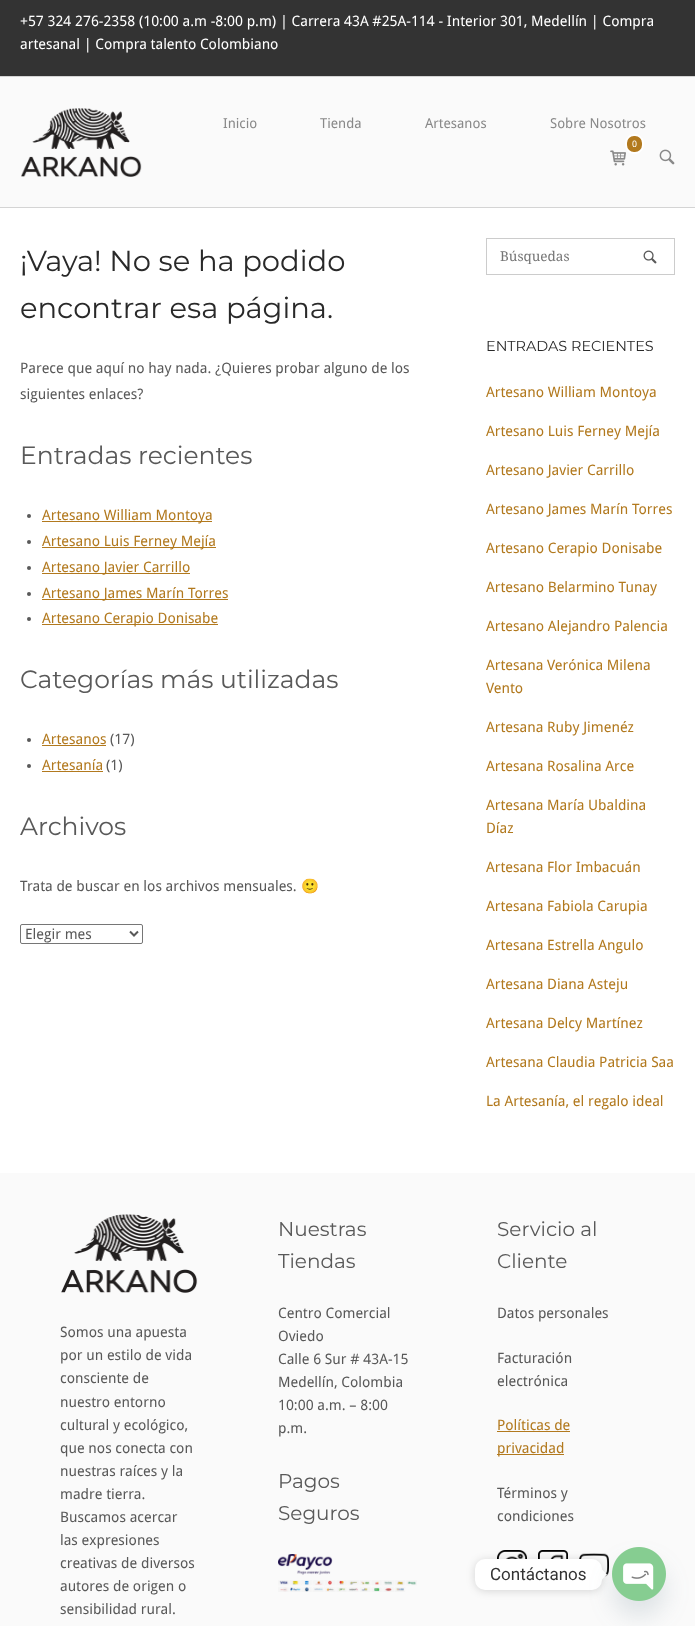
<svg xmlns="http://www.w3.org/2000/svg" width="695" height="1626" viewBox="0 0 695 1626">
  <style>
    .t1 { font: 14.4px Droid Sans; fill: #fff; }
    .t2 { font: 13.75px Droid Sans; fill: #898989; }
    .t3 { font: 9px Droid Sans; fill: #fff; }
    .t4 { font: 100 29px Montserrat; fill: #292929; }
    .t5 { font: 14.4px Droid Sans; fill: #595959; }
    .t6 { font: 100 25px Montserrat; fill: #595959; }
    .t7 { font: 14.4px Droid Sans; fill: #b2791e; }
    .t8 { font: 14.4px Noto Color Emoji; fill: #595959; }
    .t9 { font: 13.5px Droid Serif; fill: #757575; }
    .t10 { font: 100 14.4px Montserrat; fill: #292929; }
    .t11 { font: 100 20px Montserrat; fill: #595959; }
    .t12 { font: 17px Roboto; fill: #333; }
  </style>
  <defs>
    <clipPath id="clip1"><rect x="500" y="248" width="116" height="16"/></clipPath>
  </defs>
  <rect width="100%" height="100%" fill="#fff"/>
  <rect x="0" y="0" width="695" height="76" fill="#333"/>
  <rect x="0" y="76" width="695" height="1" fill="#d4d4d4"/>
  <text x="20" y="26" class="t1">+57 324 276-2358 (10:00 a.m -8:00 p.m) | Carrera 43A #25A-114 - Interior 301, Medellín | Compra</text>
  <text x="20" y="49" class="t1">artesanal | Compra talento Colombiano</text>
  <rect x="0" y="77" width="695" height="130" fill="#fafafa"/>
  <rect x="0" y="207" width="695" height="1" fill="#d4d4d4"/>
  <image x="21" y="108" width="121" height="69" href="images/1.png"/>
  <text x="223" y="128" class="t2">Inicio</text>
  <text x="320" y="128" class="t2">Tienda</text>
  <text x="425" y="128" class="t2">Artesanos</text>
  <text x="550" y="128" class="t2">Sobre Nosotros</text>
  <image x="610" y="150" width="16" height="16" href="images/2.png"/>
  <rect x="626" y="135" width="17" height="18" rx="8" fill="#b2791e" stroke="#fff" stroke-width="2"/>
  <text x="632" y="147" class="t3">0</text>
  <image x="659" y="149" width="16" height="16" href="images/3.png"/>
  <text x="20" y="271" class="t4">¡Vaya! No se ha podido</text>
  <text x="20" y="318" class="t4">encontrar esa página.</text>
  <text x="20" y="373" class="t5">Parece que aquí no hay nada. ¿Quieres probar alguno de los</text>
  <text x="20" y="399" class="t5">siguientes enlaces?</text>
  <text x="20" y="464" class="t6">Entradas recientes</text>
  <circle cx="29" cy="516" r="2" fill="#595959"/>
  <rect x="42" y="521" width="170" height="1" fill="#b2791e"/>
  <text x="42" y="520" class="t7">Artesano William Montoya</text>
  <circle cx="29" cy="542" r="2" fill="#595959"/>
  <rect x="42" y="547" width="174" height="1" fill="#b2791e"/>
  <text x="42" y="546" class="t7">Artesano Luis Ferney Mejía</text>
  <circle cx="29" cy="568" r="2" fill="#595959"/>
  <rect x="42" y="573" width="148" height="1" fill="#b2791e"/>
  <text x="42" y="572" class="t7">Artesano Javier Carrillo</text>
  <circle cx="29" cy="594" r="2" fill="#595959"/>
  <rect x="42" y="599" width="186" height="1" fill="#b2791e"/>
  <text x="42" y="598" class="t7">Artesano James Marín Torres</text>
  <circle cx="29" cy="619" r="2" fill="#595959"/>
  <rect x="42" y="624" width="176" height="1" fill="#b2791e"/>
  <text x="42" y="623" class="t7">Artesano Cerapio Donisabe</text>
  <text x="20" y="688" class="t6">Categorías más utilizadas</text>
  <circle cx="29" cy="740" r="2" fill="#595959"/>
  <text x="42" y="744" class="t7">Artesanos</text>
  <rect x="42" y="745" width="64" height="1" fill="#b2791e"/>
  <text x="110" y="744" class="t5">(17)</text>
  <circle cx="29" cy="766" r="2" fill="#595959"/>
  <text x="42" y="770" class="t7">Artesanía</text>
  <rect x="42" y="771" width="61" height="1" fill="#b2791e"/>
  <text x="106" y="770" class="t5">(1)</text>
  <text x="20" y="835" class="t6">Archivos</text>
  <text x="20" y="891" class="t5">Trata de buscar en los archivos mensuales.</text>
  <text x="301" y="891" class="t8">🙂</text>
  <rect x="20.5" y="924.5" width="122" height="19" rx="1.5" fill="none" stroke="#767676"/>
  <path d="M130 931.5L134 935.5L138 931.5" fill="none" stroke="#595959" stroke-width="2"/>
  <text x="25" y="939" class="t5">Elegir mes</text>
  <rect x="486.5" y="238.5" width="188" height="36" fill="none" stroke="#ccc"/>
  <g clip-path="url(#clip1)">
    <text x="500" y="261" class="t9">Búsquedas</text>
  </g>
  <image x="643" y="250" width="14" height="14" href="images/4.png"/>
  <text x="486" y="351" class="t10">ENTRADAS RECIENTES</text>
  <text x="486" y="397" class="t7">Artesano William Montoya</text>
  <text x="486" y="436" class="t7">Artesano Luis Ferney Mejía</text>
  <text x="486" y="475" class="t7">Artesano Javier Carrillo</text>
  <text x="486" y="514" class="t7">Artesano James Marín Torres</text>
  <text x="486" y="553" class="t7">Artesano Cerapio Donisabe</text>
  <text x="486" y="592" class="t7">Artesano Belarmino Tunay</text>
  <text x="486" y="631" class="t7">Artesano Alejandro Palencia</text>
  <text x="486" y="670" class="t7">Artesana Verónica Milena</text>
  <text x="486" y="693" class="t7">Vento</text>
  <text x="486" y="732" class="t7">Artesana Ruby Jimenéz</text>
  <text x="486" y="771" class="t7">Artesana Rosalina Arce</text>
  <text x="486" y="810" class="t7">Artesana María Ubaldina</text>
  <text x="486" y="833" class="t7">Díaz</text>
  <text x="486" y="872" class="t7">Artesana Flor Imbacuán</text>
  <text x="486" y="911" class="t7">Artesana Fabiola Carupia</text>
  <text x="486" y="950" class="t7">Artesana Estrella Angulo</text>
  <text x="486" y="989" class="t7">Artesana Diana Asteju</text>
  <text x="486" y="1028" class="t7">Artesana Delcy Martínez</text>
  <text x="486" y="1067" class="t7">Artesana Claudia Patricia Saa</text>
  <text x="486" y="1106" class="t7">La Artesanía, el regalo ideal</text>
  <rect x="0" y="1173" width="695" height="453" fill="#fafafa"/>
  <image x="61" y="1214" width="137" height="79" href="images/5.png"/>
  <text x="60" y="1337" class="t5">Somos una apuesta</text>
  <text x="60" y="1360" class="t5">por un estilo de vida</text>
  <text x="60" y="1383" class="t5">consciente de</text>
  <text x="60" y="1407" class="t5">nuestro entorno</text>
  <text x="60" y="1430" class="t5">cultural y ecológico,</text>
  <text x="60" y="1453" class="t5">que nos conecta con</text>
  <text x="60" y="1476" class="t5">nuestras raíces y la</text>
  <text x="60" y="1499" class="t5">madre tierra.</text>
  <text x="60" y="1522" class="t5">Buscamos acercar</text>
  <text x="60" y="1545" class="t5">las expresiones</text>
  <text x="60" y="1568" class="t5">creativas de diversos</text>
  <text x="60" y="1591" class="t5">autores de origen o</text>
  <text x="60" y="1614" class="t5">sensibilidad rural.</text>
  <text x="278" y="1236" class="t11">Nuestras</text>
  <text x="278" y="1268" class="t11">Tiendas</text>
  <text x="278" y="1318" class="t5">Centro Comercial</text>
  <text x="278" y="1341" class="t5">Oviedo</text>
  <text x="278" y="1364" class="t5">Calle 6 Sur # 43A-15</text>
  <text x="278" y="1387" class="t5">Medellín, Colombia</text>
  <text x="278" y="1410" class="t5">10:00 a.m. – 8:00</text>
  <text x="278" y="1433" class="t5">p.m.</text>
  <text x="278" y="1488" class="t11">Pagos</text>
  <text x="278" y="1520" class="t11">Seguros</text>
  <image x="278" y="1554" width="139" height="38" href="images/6.png"/>
  <text x="497" y="1236" class="t11">Servicio al</text>
  <text x="497" y="1268" class="t11">Cliente</text>
  <text x="497" y="1318" class="t5">Datos personales</text>
  <text x="497" y="1363" class="t5">Facturación</text>
  <text x="497" y="1386" class="t5">electrónica</text>
  <text x="497" y="1430" class="t7">Políticas de</text>
  <rect x="497" y="1431" width="73" height="1" fill="#b2791e"/>
  <rect x="497" y="1454" width="67" height="1" fill="#b2791e"/>
  <text x="497" y="1453" class="t7">privacidad</text>
  <text x="497" y="1498" class="t5">Términos y</text>
  <text x="497" y="1521" class="t5">condiciones</text>
  <image x="497" y="1550" width="30" height="9" href="images/7.png"/>
  <image x="538" y="1550" width="30" height="9" href="images/8.png"/>
  <image x="579" y="1553" width="30" height="24" href="images/9.png"/>
  <rect x="475" y="1560" width="127" height="31" rx="10" fill="#00000026" filter="blur(4px)"/>
  <rect x="475" y="1559" width="127" height="31" rx="10" fill="#fff"/>
  <text x="490" y="1580" class="t12">Contáctanos</text>
  <path d="M602 1579.5V1569.5L607 1574.5Z" fill="#fff"/>
  <rect x="612" y="1563" width="54" height="54" rx="27" fill="#49687e29" filter="blur(12px)"/>
  <image x="612" y="1547" width="54" height="54" href="images/10.png"/>
</svg>
